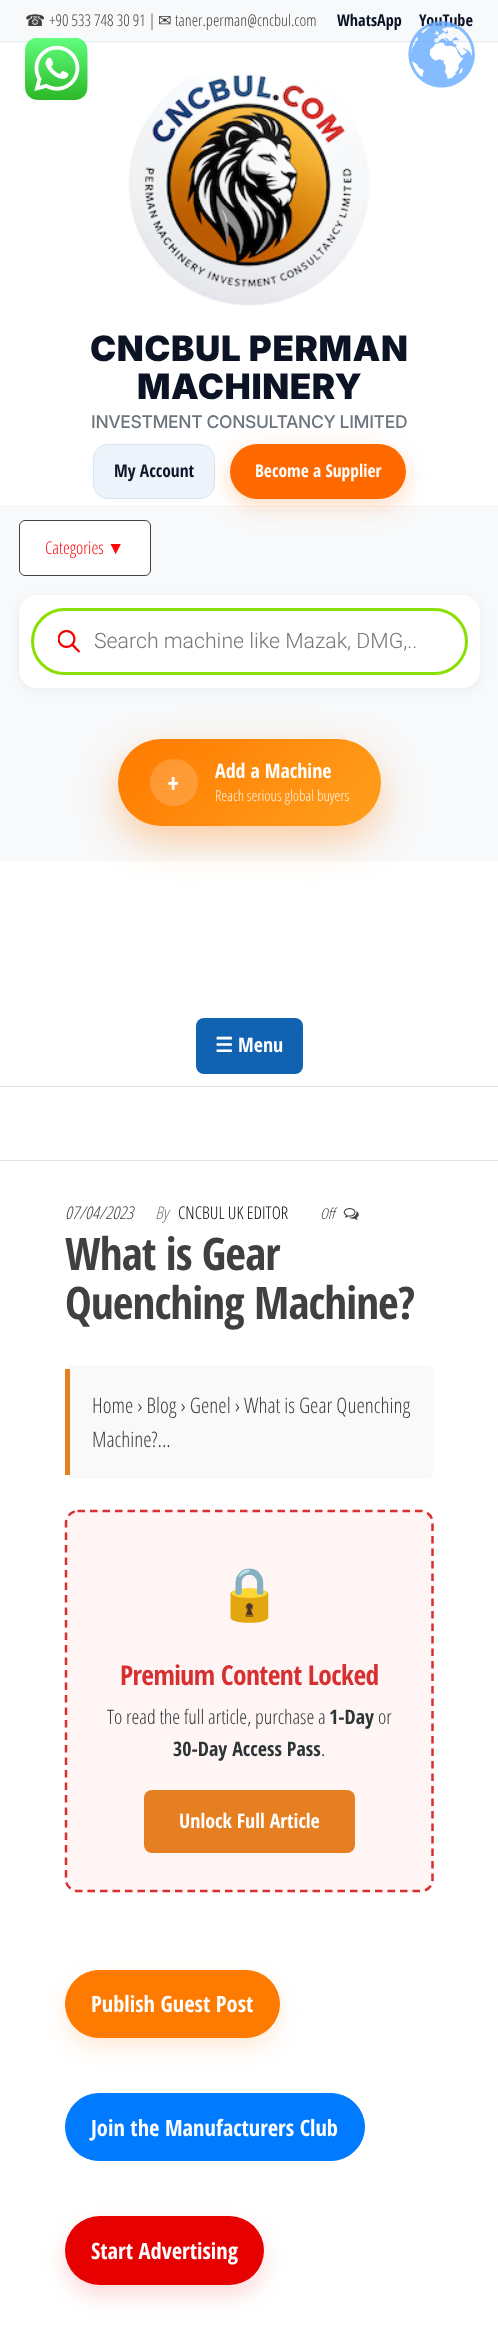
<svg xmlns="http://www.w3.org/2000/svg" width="498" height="2330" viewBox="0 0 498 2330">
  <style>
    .t1 { font: 16.25px DejaVu Sans; fill: #404040; }
    .t2 { font: 300 16.25px Open Sans Condensed; fill: #404040; }
    .t3 { font: bold 16.25px Open Sans Condensed; fill: #0b1324; }
    .t4 { font: 900 35px Inter; letter-spacing: 0.6px; fill: #0b1324; }
    .t5 { font: 500 17.5px Inter; letter-spacing: -0.35px; fill: #6c757d; }
    .t6 { font: bold 17.5px Open Sans Condensed; fill: #0f172a; }
    .t7 { font: bold 17.5px Open Sans Condensed; fill: #fff; }
    .t8 { font: 300 17.5px Open Sans Condensed; fill: #ff0707; }
    .t9 { font: 17.5px Liberation Sans; fill: #ff0707; }
    .t10 { font: 300 21.25px Roboto; fill: #777; }
    .t11 { font: bold 27.5px Open Sans Condensed; fill: #fff; }
    .t12 { font: bold 20px Open Sans Condensed; fill: #fff; }
    .t13 { font: 300 15px Open Sans Condensed; fill: #fff4e7; }
    .t14 { font: bold 20px DejaVu Sans; fill: #fff; }
    .t15 { font: italic 300 17.5px Open Sans Condensed; fill: #404040; }
    .t16 { font: italic 300 17.5px Open Sans Condensed; fill: #777; }
    .t17 { font: 300 17.5px Open Sans Condensed; fill: #000; }
    .t18 { font: italic 300 15px Open Sans Condensed; fill: #404040; }
    .t19 { font: bold 45px Open Sans Condensed; letter-spacing: -0.9px; fill: #404040; }
    .t20 { font: 300 21.25px Open Sans Condensed; fill: #404040; }
    .t21 { font: 52px Noto Color Emoji; fill: #404040; }
    .t22 { font: bold 27.5px Open Sans Condensed; letter-spacing: -0.55px; fill: #d63031; }
    .t23 { font: 300 20px Open Sans Condensed; fill: #2d3436; }
    .t24 { font: bold 20px Open Sans Condensed; fill: #2d3436; }
    .t25 { font: bold 22.5px Open Sans Condensed; fill: #fff; }
  </style>
  <defs>
    <linearGradient id="g1" gradientUnits="userSpaceOnUse" x1="162" y1="695" x2="337" y2="870"><stop offset="0" stop-color="#ff7a00"/><stop offset="1" stop-color="#ff9f1c"/></linearGradient>
  </defs>
  <rect width="100%" height="100%" fill="#fff"/>
  <rect x="0" y="0" width="498" height="43" fill="#f8f9fa"/>
  <rect x="0" y="41" width="498" height="1" fill="#e6eef5"/>
  <text x="25" y="26" class="t1">☎</text>
  <text x="49" y="26" class="t2">+90 533 748 30 91 |</text>
  <text x="158" y="26" class="t1">✉</text>
  <text x="175" y="26" class="t2">taner.perman@cncbul.com</text>
  <text x="337" y="26" class="t3">WhatsApp</text>
  <text x="419" y="26" class="t3">YouTube</text>
  <rect x="0" y="506" width="498" height="1" fill="#f1f1f2"/>
  <image x="128" y="74" width="242" height="232" href="images/1.png"/>
  <text x="90" y="361" class="t4">CNCBUL PERMAN</text>
  <text x="137" y="399" class="t4">MACHINERY</text>
  <text x="91" y="428" class="t5">INVESTMENT CONSULTANCY LIMITED</text>
  <rect x="93.5" y="444.5" width="121" height="54" rx="14.5" fill="#eef4fb" stroke="#d7e3f0"/>
  <text x="114" y="477" class="t6">My Account</text>
  <rect x="0" y="508" width="498" height="353" fill="#f8f9fa"/>
  <rect x="230" y="451" width="176" height="55" rx="27.5" fill="#ff6a0040" filter="blur(11px)"/>
  <rect x="230" y="444" width="176" height="55" rx="27.5" fill="#ff6a00"/>
  <text x="255" y="477" class="t7">Become a Supplier</text>
  <rect x="19.5" y="520.5" width="131" height="55" rx="5.5" fill="#fff" stroke="#444"/>
  <text x="45" y="554" class="t8">Categories</text>
  <text x="107" y="554" class="t9">▼</text>
  <rect x="19" y="598" width="461" height="92" rx="18" fill="#0f172a0f" filter="blur(6px)"/>
  <rect x="19" y="595" width="461" height="93" rx="18" fill="#fff"/>
  <rect x="32.5" y="609.5" width="434" height="64" rx="32" fill="none" stroke="#8ae000" stroke-width="3"/>
  <image x="58" y="630" width="22" height="23" href="images/2.png"/>
  <text x="94" y="648" class="t10">Search machine like Mazak, DMG,..</text>
  <rect x="118" y="754" width="263" height="87" rx="43.5" fill="#ff7a0059" filter="blur(19px)"/>
  <rect x="118" y="739" width="263" height="87" rx="43.5" fill="url(#g1)"/>
  <rect x="150" y="759" width="48" height="47" rx="23.5" fill="#ffffff2e"/>
  <text x="167" y="793" class="t11">+</text>
  <text x="215" y="778" class="t12">Add a Machine</text>
  <text x="215" y="801" class="t13">Reach serious global buyers</text>
  <rect x="196" y="1018" width="107" height="56" rx="8" fill="#1163b2"/>
  <text x="215" y="1052" class="t14">☰</text>
  <text x="238" y="1052" class="t12">Menu</text>
  <rect x="0" y="1086" width="498" height="1" fill="#e2e2e2"/>
  <rect x="0" y="1160" width="498" height="1" fill="#e2e2e2"/>
  <text x="65" y="1219" class="t15">07/04/2023</text>
  <text x="155" y="1219" class="t16">By</text>
  <text x="178" y="1219" class="t17">CNCBUL UK EDITOR</text>
  <text x="320" y="1219" class="t18">Off</text>
  <image x="343" y="1208" width="16" height="12" href="images/3.png"/>
  <text x="65" y="1270" class="t19">What is Gear</text>
  <text x="65" y="1319" class="t19">Quenching Machine?</text>
  <rect x="65" y="1365" width="369" height="114" rx="8" fill="#f9f9f9"/>
  <rect x="65" y="1369" width="5" height="106" fill="#e67e22"/>
  <text x="92" y="1413" class="t20">Home › Blog › Genel › What is Gear Quenching</text>
  <text x="92" y="1447" class="t20">Machine?...</text>
  <rect x="65" y="1510" width="369" height="383" rx="13" fill="#fff5f5"/>
  <path d="M77.5 1511H421C427.5 1511 432.5 1516.5 432.5 1522.5V1880C432.5 1886 427.5 1891 421 1891H77.5C71.5 1891 66 1886 66 1880V1522.5C66 1516.5 71.5 1511 77.5 1511Z" fill="none" stroke="#d63031" stroke-width="2.5" stroke-dasharray="7.5 5"/>
  <text x="217" y="1612" class="t21">🔒</text>
  <text x="120" y="1685" class="t22">Premium Content Locked</text>
  <text x="107" y="1724" class="t23">To read the full article, purchase a</text>
  <text x="329" y="1724" class="t24">1-Day</text>
  <text x="378" y="1724" class="t23">or</text>
  <text x="173" y="1756" class="t24">30-Day Access Pass</text>
  <text x="321" y="1756" class="t23">.</text>
  <rect x="144" y="1790" width="211" height="63" rx="8" fill="#e67e22"/>
  <text x="179" y="1828" class="t12">Unlock Full Article</text>
  <rect x="65" y="1980" width="215" height="68" rx="34" fill="#ff7a0026" filter="blur(11px)"/>
  <rect x="65.5" y="1970.5" width="214" height="67" rx="33.5" fill="#ff7a00" stroke="#ff7a00"/>
  <text x="91" y="2012" class="t25">Publish Guest Post</text>
  <rect x="65.5" y="2093.5" width="299" height="67" rx="33.5" fill="#007bff" stroke="#007bff"/>
  <text x="91" y="2136" class="t25">Join the Manufacturers Club</text>
  <rect x="65" y="2226" width="199" height="69" rx="34.5" fill="#e6000026" filter="blur(11px)"/>
  <rect x="65" y="2216" width="199" height="69" rx="34.5" fill="#e60000"/>
  <text x="91" y="2259" class="t25">Start Advertising</text>
  <image x="25" y="38" width="63" height="62" href="images/4.png"/>
  <image x="408" y="21" width="67" height="67" href="images/5.png"/>
</svg>
